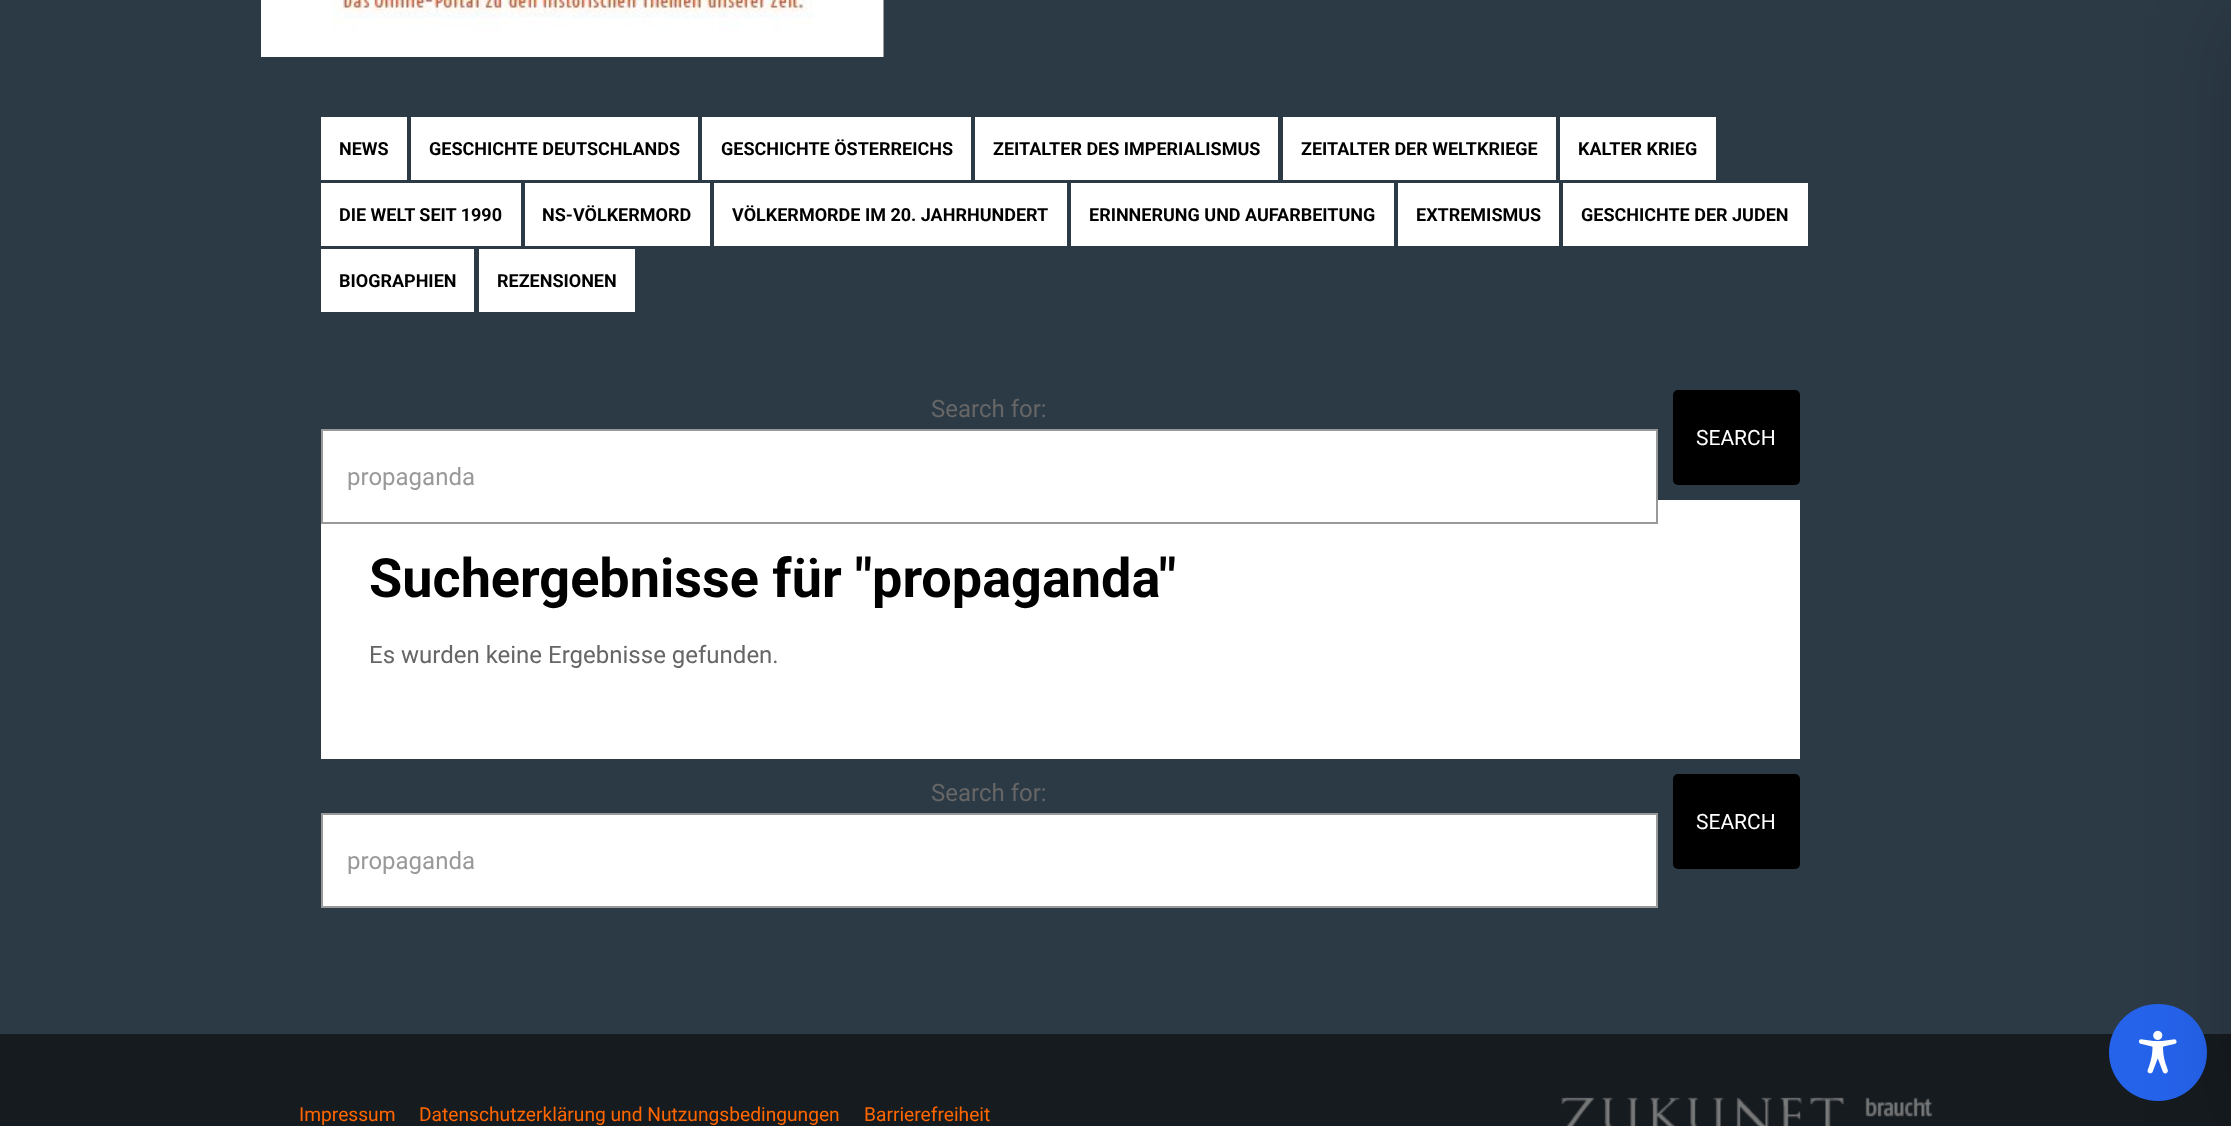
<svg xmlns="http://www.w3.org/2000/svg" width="2231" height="1126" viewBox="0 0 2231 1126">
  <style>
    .t1 { font: bold 18px Roboto; fill: #000; }
    .t2 { font: 24px Roboto; fill: #666; }
    .t3 { font: 24px Roboto; fill: #999; }
    .t4 { font: 21px Roboto; fill: #fff; }
    .t5 { font: bold 54px Roboto; fill: #000; }
    .t6 { font: 19.2px Roboto; fill: #f60; }
  </style>
  <rect width="100%" height="100%" fill="#2c3a46"/>
  <image x="261" y="0" width="623" height="57" href="images/1.png"/>
  <rect x="321" y="117" width="86" height="63" fill="#fff"/>
  <text x="339" y="155" class="t1">NEWS</text>
  <rect x="411" y="117" width="287" height="63" fill="#fff"/>
  <text x="429" y="155" class="t1">GESCHICHTE DEUTSCHLANDS</text>
  <rect x="702" y="117" width="269" height="63" fill="#fff"/>
  <text x="721" y="155" class="t1">GESCHICHTE ÖSTERREICHS</text>
  <rect x="975" y="117" width="303" height="63" fill="#fff"/>
  <text x="993" y="155" class="t1">ZEITALTER DES IMPERIALISMUS</text>
  <rect x="1283" y="117" width="273" height="63" fill="#fff"/>
  <text x="1301" y="155" class="t1">ZEITALTER DER WELTKRIEGE</text>
  <rect x="1560" y="117" width="156" height="63" fill="#fff"/>
  <text x="1578" y="155" class="t1">KALTER KRIEG</text>
  <rect x="321" y="183" width="200" height="63" fill="#fff"/>
  <text x="339" y="221" class="t1">DIE WELT SEIT 1990</text>
  <rect x="525" y="183" width="185" height="63" fill="#fff"/>
  <text x="542" y="221" class="t1">NS-VÖLKERMORD</text>
  <rect x="714" y="183" width="353" height="63" fill="#fff"/>
  <text x="732" y="221" class="t1">VÖLKERMORDE IM 20. JAHRHUNDERT</text>
  <rect x="1071" y="183" width="323" height="63" fill="#fff"/>
  <text x="1089" y="221" class="t1">ERINNERUNG UND AUFARBEITUNG</text>
  <rect x="1398" y="183" width="161" height="63" fill="#fff"/>
  <text x="1416" y="221" class="t1">EXTREMISMUS</text>
  <rect x="1563" y="183" width="245" height="63" fill="#fff"/>
  <text x="1581" y="221" class="t1">GESCHICHTE DER JUDEN</text>
  <rect x="321" y="249" width="153" height="63" fill="#fff"/>
  <text x="339" y="287" class="t1">BIOGRAPHIEN</text>
  <rect x="479" y="249" width="156" height="63" fill="#fff"/>
  <text x="497" y="287" class="t1">REZENSIONEN</text>
  <text x="931" y="417" class="t2">Search for:</text>
  <rect x="323" y="431" width="1333" height="69" fill="#fff"/>
  <rect x="321" y="500" width="1479" height="259" fill="#fff"/>
  <rect x="322" y="430" width="1335" height="93" fill="none" stroke="#999" stroke-width="2"/>
  <text x="347" y="485" class="t3">propaganda</text>
  <rect x="1673" y="390" width="127" height="95" rx="5" fill="#000"/>
  <text x="1696" y="445" class="t4">SEARCH</text>
  <text x="369" y="597" class="t5">Suchergebnisse für "</text>
  <text x="872" y="597" class="t5">propaganda</text>
  <text x="1159" y="597" class="t5">"</text>
  <text x="369" y="663" class="t2">Es wurden keine Ergebnisse gefunden.</text>
  <text x="931" y="801" class="t2">Search for:</text>
  <rect x="322" y="814" width="1335" height="93" fill="#fff" stroke="#999" stroke-width="2"/>
  <text x="347" y="869" class="t3">propaganda</text>
  <rect x="1673" y="774" width="127" height="95" rx="5" fill="#000"/>
  <text x="1696" y="829" class="t4">SEARCH</text>
  <rect x="0" y="1034" width="2231" height="92" fill="#161b20"/>
  <rect x="2109" y="1004" width="98" height="97" rx="48.5" fill="#2563eb"/>
  <image x="2138" y="1030" width="39" height="44" href="images/2.png"/>
  <rect x="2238" y="15" width="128" height="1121" fill="#00000033" filter="blur(45px)"/>
  <image x="1561" y="1097" width="372" height="29" href="images/3.png"/>
  <text x="299" y="1121" class="t6">Impressum</text>
  <text x="419" y="1121" class="t6">Datenschutzerklärung und Nutzungsbedingungen</text>
  <text x="864" y="1121" class="t6">Barrierefreiheit</text>
</svg>
